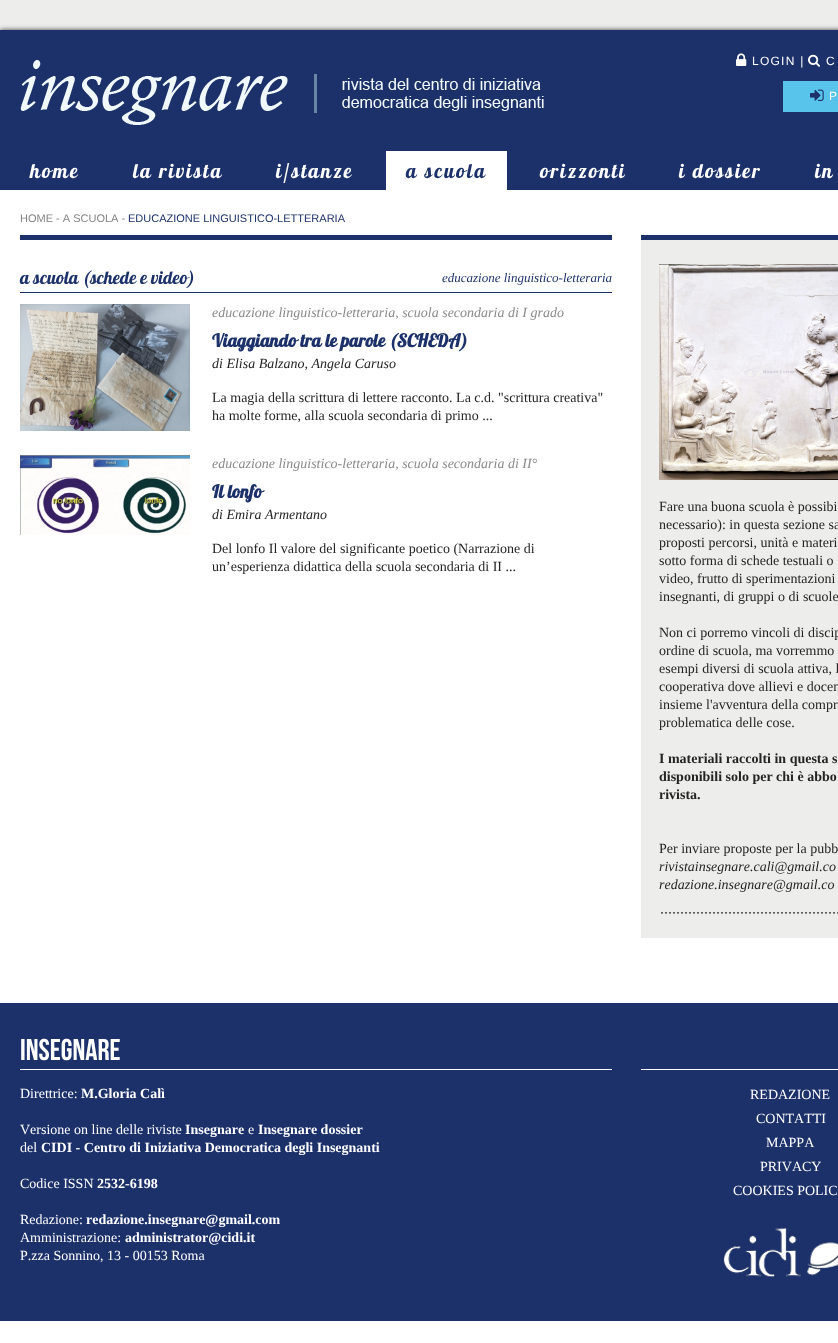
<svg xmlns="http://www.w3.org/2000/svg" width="838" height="1343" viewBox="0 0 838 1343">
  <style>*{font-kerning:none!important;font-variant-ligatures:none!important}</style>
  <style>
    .t1 { font: 12px Liberation Sans; letter-spacing: 1.25px; fill: #fff; }
    .t2 { font: 20px Lobster; letter-spacing: 2px; fill: #fff; }
    .t3 { font: 20px Lobster; letter-spacing: 2px; fill: #1c316a; }
    .t4 { font: 11px Liberation Sans; fill: #838482; }
    .t5 { font: 11px Liberation Sans; fill: #1c316a; }
    .t6 { font: 18px Lobster; fill: #1c316a; }
    .t7 { font: italic 13px Liberation Serif; fill: #1c316a; }
    .t8 { font: italic 14px Liberation Serif; fill: #8a8a8a; }
    .t9 { font: bold 18px Lobster; fill: #1c316a; }
    .t10 { font: italic 14px Liberation Serif; fill: #242424; }
    .t11 { font: 14px Liberation Serif; fill: #242424; }
    .t12 { font: bold 14px Liberation Serif; fill: #242424; }
    .t13 { font: 30px Bebas Neue; fill: #fff; }
    .t14 { font: 14px Liberation Serif; fill: #fff; }
    .t15 { font: bold 14px Liberation Serif; fill: #fff; }
  </style>
  <rect width="100%" height="100%" fill="#edeeeb"/>
  <rect x="0" y="30" width="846" height="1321" fill="#000000bf" filter="blur(2.5px)"/>
  <rect x="0" y="190" width="838" height="1153" fill="#fff"/>
  <rect x="0" y="30" width="838" height="160" fill="#1c316a"/>
  <image x="20" y="60" width="524" height="65" href="images/1.png"/>
  <image x="736" y="53" width="11" height="13" href="images/2.png"/>
  <text x="752" y="65" class="t1">LOGIN |</text>
  <image x="808" y="54" width="12" height="13" href="images/3.png"/>
  <text x="826" y="65" class="t1">C</text>
  <rect x="783" y="81" width="55" height="31" fill="#58c3eb"/>
  <image x="810" y="89" width="14" height="12" href="images/4.png"/>
  <text x="829" y="100" class="t1">P</text>
  <text x="30" y="178" class="t2">home</text>
  <text x="133" y="178" class="t2">la rivista</text>
  <text x="276" y="178" class="t2">i/stanze</text>
  <rect x="386" y="151" width="121" height="39" fill="#fff"/>
  <text x="406" y="178" class="t3">a scuola</text>
  <text x="540" y="178" class="t2">orizzonti</text>
  <text x="679" y="178" class="t2">i dossier</text>
  <text x="815" y="178" class="t2">in</text>
  <rect x="20" y="235" width="592" height="5" fill="#1c316a"/>
  <text x="20" y="222" class="t4">HOME - A SCUOLA -</text>
  <text x="128" y="222" class="t5">EDUCAZIONE LINGUISTICO-LETTERARIA</text>
  <rect x="20" y="292" width="592" height="1" fill="#1c316a"/>
  <text x="20" y="284" class="t6">a scuola (schede e video)</text>
  <text x="442" y="282" class="t7">educazione linguistico-letteraria</text>
  <image x="20" y="304" width="170" height="127" href="images/5.png"/>
  <text x="212" y="317" class="t8">educazione linguistico-letteraria, scuola secondaria di I grado</text>
  <text x="212" y="347" class="t9">Viaggiando tra le parole (SCHEDA)</text>
  <text x="212" y="368" class="t10">di Elisa Balzano, Angela Caruso</text>
  <text x="212" y="402" class="t11">La magia della scrittura di lettere racconto. La c.d. "scrittura creativa"</text>
  <text x="212" y="420" class="t11">ha molte forme, alla scuola secondaria di primo ...</text>
  <image x="20" y="455" width="170" height="80" href="images/6.png"/>
  <text x="212" y="468" class="t8">educazione linguistico-letteraria, scuola secondaria di II°</text>
  <text x="212" y="498" class="t9">Il lonfo</text>
  <text x="212" y="519" class="t10">di Emira Armentano</text>
  <text x="212" y="553" class="t11">Del lonfo Il valore del significante poetico (Narrazione di</text>
  <text x="212" y="571" class="t11">un’esperienza didattica della scuola secondaria di II ...</text>
  <rect x="641" y="240" width="197" height="698" fill="#edeeeb"/>
  <rect x="641" y="235" width="197" height="5" fill="#1c316a"/>
  <image x="661" y="912" width="177" height="2" href="images/7.png"/>
  <image x="659" y="264" width="179" height="216" href="images/8.png"/>
  <text x="659" y="511" class="t11">Fare una buona scuola è possibi</text>
  <text x="659" y="529" class="t11">necessario): in questa sezione sa</text>
  <text x="659" y="547" class="t11">proposti percorsi, unità e materi</text>
  <text x="659" y="565" class="t11">sotto forma di schede testuali o</text>
  <text x="659" y="583" class="t11">video, frutto di sperimentazioni</text>
  <text x="659" y="601" class="t11">insegnanti, di gruppi o di scuole</text>
  <text x="659" y="637" class="t11">Non ci porremo vincoli di discip</text>
  <text x="659" y="655" class="t11">ordine di scuola, ma vorremmo</text>
  <text x="659" y="673" class="t11">esempi diversi di scuola attiva, l</text>
  <text x="659" y="691" class="t11">cooperativa dove allievi e docen</text>
  <text x="659" y="709" class="t11">insieme l'avventura della compr</text>
  <text x="659" y="727" class="t11">problematica delle cose.</text>
  <text x="659" y="763" class="t12">I materiali raccolti in questa s</text>
  <text x="659" y="781" class="t12">disponibili solo per chi è abbo</text>
  <text x="659" y="799" class="t12">rivista.</text>
  <text x="659" y="853" class="t11">Per inviare proposte per la pubb</text>
  <text x="659" y="871" class="t10">rivistainsegnare.cali@gmail.co</text>
  <text x="659" y="889" class="t10">redazione.insegnare@gmail.co</text>
  <rect x="0" y="1003" width="838" height="318" fill="#1c316a"/>
  <rect x="20" y="1069" width="592" height="1" fill="#fff"/>
  <text x="20" y="1060" class="t13">INSEGNARE</text>
  <text x="20" y="1098" class="t14">Direttrice:</text>
  <text x="81" y="1098" class="t15">M.Gloria Calì</text>
  <text x="20" y="1134" class="t14">Versione on line delle riviste</text>
  <text x="185" y="1134" class="t15">Insegnare</text>
  <text x="248" y="1134" class="t14">e</text>
  <text x="258" y="1134" class="t15">Insegnare dossier</text>
  <text x="20" y="1152" class="t14">del</text>
  <text x="41" y="1152" class="t15">CIDI - Centro di Iniziativa Democratica degli Insegnanti</text>
  <text x="20" y="1188" class="t14">Codice ISSN</text>
  <text x="97" y="1188" class="t15">2532-6198</text>
  <text x="20" y="1224" class="t14">Redazione:</text>
  <text x="86" y="1224" class="t15">redazione.insegnare@gmail.com</text>
  <text x="20" y="1242" class="t14">Amministrazione:</text>
  <text x="125" y="1242" class="t15">administrator@cidi.it</text>
  <text x="20" y="1260" class="t14">P.zza Sonnino, 13 - 00153 Roma</text>
  <rect x="641" y="1069" width="197" height="1" fill="#fff"/>
  <text x="750" y="1099" class="t14">REDAZIONE</text>
  <text x="756" y="1123" class="t14">CONTATTI</text>
  <text x="766" y="1147" class="t14">MAPPA</text>
  <text x="760" y="1171" class="t14">PRIVACY</text>
  <text x="733" y="1195" class="t14">COOKIES POLIC</text>
  <image x="723" y="1227" width="115" height="50" href="images/9.png"/>
</svg>
